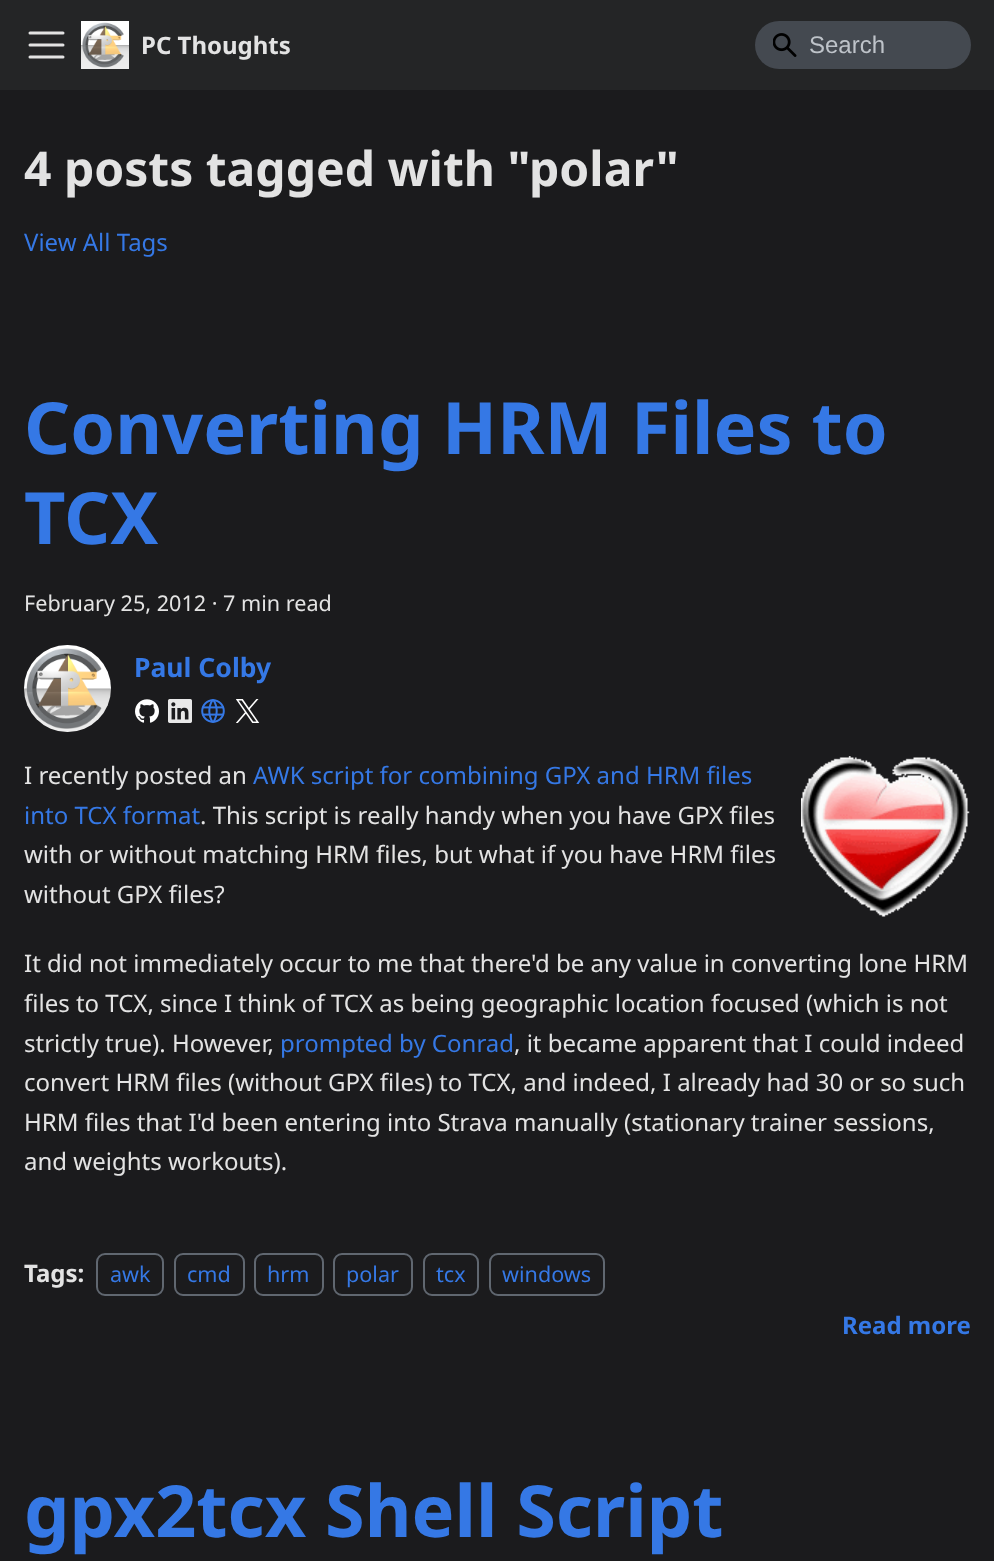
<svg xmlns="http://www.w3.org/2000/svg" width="994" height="1561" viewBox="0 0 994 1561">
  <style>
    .t1 { font: bold 24px Noto Sans; fill: #e3e3e3; }
    .t2 { font: 24px Liberation Sans; fill: #bec3c9; }
    .t3 { font: bold 48px Noto Sans; fill: #e3e3e3; }
    .t4 { font: 24px Noto Sans; fill: #3578e5; }
    .t5 { font: bold 72px Noto Sans; fill: #3578e5; }
    .t6 { font: 21.6px Noto Sans; fill: #e3e3e3; }
    .t7 { font: bold 26.5px Noto Sans; fill: #3578e5; }
    .t8 { font: 24px Noto Sans; fill: #e3e3e3; }
    .t9 { font: 21.6px Noto Sans; fill: #3578e5; }
    .t10 { font: bold 24px Noto Sans; fill: #3578e5; }
  </style>
  <rect width="100%" height="100%" fill="#1b1b1d"/>
  <rect x="0" y="0" width="994" height="90" fill="#242526"/>
  <path d="M30 33H63M30 45H63M30 57H63" fill="none" stroke="#e3e3e3" stroke-width="3" stroke-linecap="round"/>
  <image x="81" y="21" width="48" height="48" href="images/1.png"/>
  <text x="141" y="54" class="t1">PC Thoughts</text>
  <rect x="755" y="21" width="216" height="48" rx="24" fill="#444950"/>
  <image x="773" y="33" width="24" height="24" href="images/2.png"/>
  <text x="809" y="53" class="t2">Search</text>
  <text x="24" y="186" class="t3">4 posts tagged with "polar"</text>
  <text x="24" y="251" class="t4">View All Tags</text>
  <text x="24" y="454" class="t5">Converting HRM Files to</text>
  <text x="24" y="544" class="t5">TCX</text>
  <text x="24" y="611" class="t6">February 25, 2012 · 7 min read</text>
  <image x="24" y="645" width="87" height="87" href="images/3.png"/>
  <text x="134" y="677" class="t7">Paul Colby</text>
  <image x="135" y="699" width="24" height="24" href="images/4.png"/>
  <image x="168" y="699" width="24" height="24" href="images/5.png"/>
  <image x="201" y="699" width="24" height="24" href="images/6.png"/>
  <image x="236" y="699" width="24" height="24" href="images/7.png"/>
  <text x="24" y="784" class="t8">I recently posted an</text>
  <text x="253" y="784" class="t4">AWK script for combining GPX and HRM files</text>
  <text x="24" y="824" class="t4">into TCX format</text>
  <text x="200" y="824" class="t8">. This script is really handy when you have GPX files</text>
  <text x="24" y="863" class="t8">with or without matching HRM files, but what if you have HRM files</text>
  <text x="24" y="903" class="t8">without GPX files?</text>
  <image x="801" y="756" width="169" height="161" href="images/8.png"/>
  <text x="24" y="972" class="t8">It did not immediately occur to me that there'd be any value in converting lone HRM</text>
  <text x="24" y="1012" class="t8">files to TCX, since I think of TCX as being geographic location focused (which is not</text>
  <text x="24" y="1052" class="t8">strictly true). However,</text>
  <text x="280" y="1052" class="t4">prompted by Conrad</text>
  <text x="514" y="1052" class="t8">, it became apparent that I could indeed</text>
  <text x="24" y="1091" class="t8">convert HRM files (without GPX files) to TCX, and indeed, I already had 30 or so such</text>
  <text x="24" y="1131" class="t8">HRM files that I'd been entering into Strava manually (stationary trainer sessions,</text>
  <text x="24" y="1170" class="t8">and weights workouts).</text>
  <text x="24" y="1282" class="t1">Tags:</text>
  <rect x="97" y="1254" width="66" height="41" rx="8" fill="none" stroke="#606770" stroke-width="2"/>
  <text x="110" y="1282" class="t9">awk</text>
  <rect x="175" y="1254" width="69" height="41" rx="8" fill="none" stroke="#606770" stroke-width="2"/>
  <text x="187" y="1282" class="t9">cmd</text>
  <rect x="255" y="1254" width="68" height="41" rx="8" fill="none" stroke="#606770" stroke-width="2"/>
  <text x="267" y="1282" class="t9">hrm</text>
  <rect x="334" y="1254" width="78" height="41" rx="8" fill="none" stroke="#606770" stroke-width="2"/>
  <text x="346" y="1282" class="t9">polar</text>
  <rect x="424" y="1254" width="54" height="41" rx="8" fill="none" stroke="#606770" stroke-width="2"/>
  <text x="436" y="1282" class="t9">tcx</text>
  <rect x="490" y="1254" width="114" height="41" rx="8" fill="none" stroke="#606770" stroke-width="2"/>
  <text x="502" y="1282" class="t9">windows</text>
  <text x="842" y="1334" class="t10">Read more</text>
  <text x="24" y="1537" class="t5">gpx2tcx Shell Script</text>
</svg>
